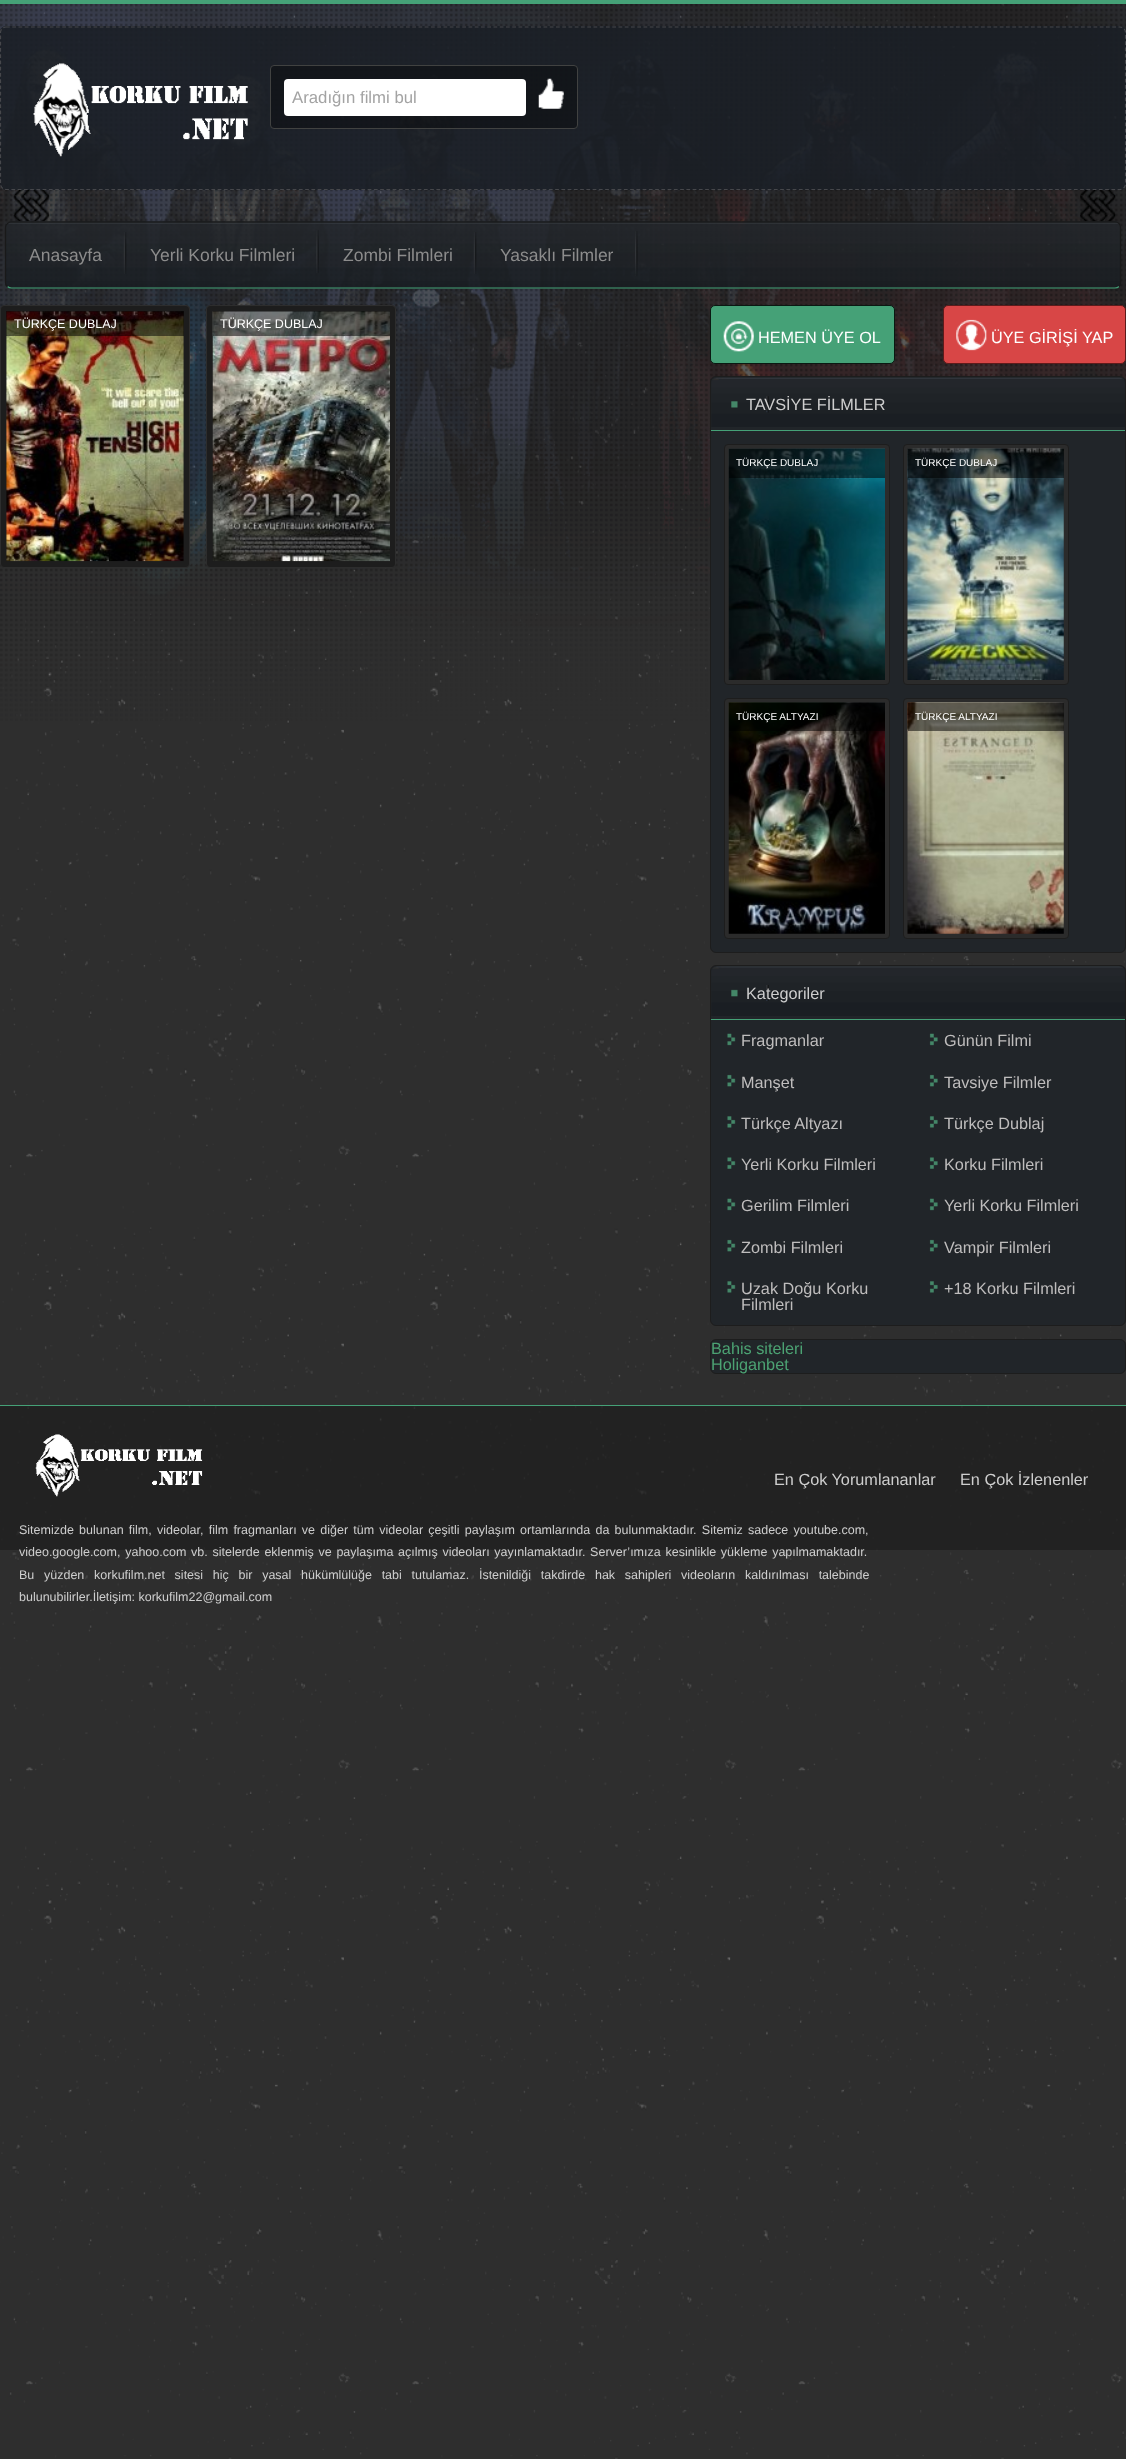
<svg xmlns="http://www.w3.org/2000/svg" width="1126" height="2459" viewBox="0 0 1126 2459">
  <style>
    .t1 { font: 16.75px Liberation Sans; fill: #a3a3a3; }
    .t2 { font: 17.5px Liberation Sans; fill: #8c8c8c; }
    .t3 { font: 12.5px Liberation Sans; fill: #fff; }
    .t4 { font: 16.25px Liberation Sans; fill: #fff; }
    .t5 { font: 16.25px Liberation Sans; fill: #cecece; }
    .t6 { font: 10px Liberation Sans; fill: #fff; }
    .t7 { font: 16.25px Liberation Sans; fill: #bfbdbd; }
    .t8 { font: 16.25px Liberation Sans; fill: #4ca273; }
    .t9 { font: 12.5px Liberation Sans; fill: #cecece; }
  </style>
  <rect width="100%" height="100%" fill="#fff"/>
  <image x="0" y="4" width="1126" height="2455" href="images/1.png"/>
  <image x="0" y="4" width="1126" height="717" href="images/2.png"/>
  <rect x="0" y="0" width="1126" height="4" fill="#45a177"/>
  <rect x="0" y="26" width="1126" height="164" rx="6" fill="#1a1f25e0"/>
  <image x="13" y="190" width="37" height="32" href="images/5.png"/>
  <image x="1080" y="190" width="36" height="32" href="images/6.png"/>
  <path d="M6 27H1120C1123 27 1125.5 29.5 1125.5 32.5V184C1125.5 187 1123 189.5 1120 189.5H6C3 189.5 .5 187 .5 184V32.5C.5 29.5 3 27 6 27Z" fill="none" stroke="#46474b" stroke-width="1.2" stroke-dasharray="3.75 2.5"/>
  <image x="33" y="63" width="215" height="94" href="images/3.png"/>
  <rect x="270.5" y="65.5" width="307" height="63" rx="3.5" fill="#00000054" stroke="#414241"/>
  <rect x="284" y="79" width="242" height="37" rx="4" fill="#fff"/>
  <text x="292" y="103" class="t1">Aradığın filmi bul</text>
  <image x="538" y="78" width="26" height="31" href="images/4.png"/>
  <image x="5" y="221" width="1116" height="68" href="images/7.png"/>
  <path d="M1119 286.5C1118 287.5 1116.5 288 1115 288H11.5C10 288 8.5 287.5 7.5 286.5" fill="none" stroke="#45a177" stroke-width="1.2"/>
  <path d="M7.5 286.5C6 285.5 5.5 284 5.5 282.5V227.5C5.5 226 6 224.5 7.5 223.5C8.5 222.5 10 222 11 222H1115C1116.5 222 1118 222.5 1119 223.5C1120 224.5 1120.5 226 1120.5 227.5V282.5C1120.5 284 1120 285.5 1119 286.5" fill="none" stroke="#191919" stroke-width="1.2"/>
  <image x="123" y="232" width="4" height="42" href="images/8.png"/>
  <text x="29" y="261" class="t2">Anasayfa</text>
  <image x="316" y="230" width="3" height="43" href="images/9.png"/>
  <text x="150" y="261" class="t2">Yerli Korku Filmleri</text>
  <image x="473" y="232" width="4" height="42" href="images/10.png"/>
  <text x="343" y="261" class="t2">Zombi Filmleri</text>
  <image x="635" y="231" width="3" height="45" href="images/11.png"/>
  <text x="500" y="261" class="t2">Yasaklı Filmler</text>
  <rect x="0.5" y="305.5" width="189" height="262" rx="3.5" fill="#1d1d1d" stroke="#2d2d2d"/>
  <image x="6" y="311" width="178" height="251" href="images/12.png"/>
  <rect x="6" y="311" width="178" height="25" fill="#00000087"/>
  <text x="14" y="328" class="t3">TÜRKÇE DUBLAJ</text>
  <rect x="206.5" y="305.5" width="189" height="262" rx="3.5" fill="#1d1d1d" stroke="#2d2d2d"/>
  <image x="212" y="311" width="178" height="251" href="images/13.png"/>
  <rect x="213" y="311" width="177" height="25" fill="#00000087"/>
  <text x="220" y="328" class="t3">TÜRKÇE DUBLAJ</text>
  <rect x="710.5" y="305.5" width="184" height="58" rx="4.5" fill="#45a177" stroke="#0a1912"/>
  <image x="723" y="321" width="31" height="31" href="images/14.png"/>
  <text x="758" y="343" class="t4">HEMEN ÜYE OL</text>
  <rect x="943.5" y="305.5" width="182" height="58" rx="4.5" fill="#d84646" stroke="#5d1b1b"/>
  <image x="956" y="319" width="31" height="32" href="images/15.png"/>
  <text x="991" y="343" class="t4">ÜYE GİRİŞİ YAP</text>
  <rect x="710.5" y="376.5" width="415" height="576" rx="5.5" fill="#212529" stroke="#1d1d1d"/>
  <image x="711" y="377" width="414" height="50" href="images/16.png"/>
  <rect x="711" y="430" width="414" height="1" fill="#45a177"/>
  <image x="731" y="396" width="38" height="17" href="images/17.png"/>
  <text x="746" y="410" class="t5">TAVSİYE FİLMLER</text>
  <rect x="724.5" y="444.5" width="165" height="240" rx="3.5" fill="#2b2b2b" stroke="#1d1d1d"/>
  <image x="728" y="448" width="157" height="232" href="images/18.png"/>
  <rect x="729" y="449" width="156" height="29" fill="#00000087"/>
  <text x="736" y="466" class="t6">TÜRKÇE DUBLAJ</text>
  <rect x="903.5" y="444.5" width="165" height="240" rx="3.5" fill="#2b2b2b" stroke="#1d1d1d"/>
  <image x="907" y="448" width="157" height="232" href="images/19.png"/>
  <rect x="908" y="449" width="156" height="29" fill="#00000087"/>
  <text x="915" y="466" class="t6">TÜRKÇE DUBLAJ</text>
  <rect x="724.5" y="698.5" width="165" height="240" rx="3.5" fill="#2b2b2b" stroke="#1d1d1d"/>
  <image x="728" y="702" width="157" height="232" href="images/20.png"/>
  <rect x="729" y="703" width="156" height="28" fill="#00000087"/>
  <text x="736" y="720" class="t6">TÜRKÇE ALTYAZI</text>
  <rect x="903.5" y="698.5" width="165" height="240" rx="3.5" fill="#2b2b2b" stroke="#1d1d1d"/>
  <image x="907" y="702" width="157" height="232" href="images/21.png"/>
  <rect x="908" y="703" width="156" height="28" fill="#00000087"/>
  <text x="915" y="720" class="t6">TÜRKÇE ALTYAZI</text>
  <rect x="710.5" y="965.5" width="415" height="360" rx="5.5" fill="#212529" stroke="#1d1d1d"/>
  <image x="711" y="966" width="414" height="50" href="images/22.png"/>
  <rect x="711" y="1019" width="414" height="1" fill="#45a177"/>
  <image x="731" y="985" width="38" height="16" href="images/23.png"/>
  <text x="746" y="999" class="t5">Kategoriler</text>
  <image x="727" y="1033" width="9" height="13" href="images/24.png"/>
  <text x="741" y="1046" class="t7">Fragmanlar</text>
  <image x="929" y="1033" width="9" height="13" href="images/25.png"/>
  <text x="944" y="1046" class="t7">Günün Filmi</text>
  <image x="727" y="1074" width="9" height="13" href="images/26.png"/>
  <text x="741" y="1088" class="t7">Manşet</text>
  <image x="929" y="1074" width="9" height="13" href="images/27.png"/>
  <text x="944" y="1088" class="t7">Tavsiye Filmler</text>
  <image x="727" y="1116" width="9" height="12" href="images/28.png"/>
  <text x="741" y="1129" class="t7">Türkçe Altyazı</text>
  <image x="929" y="1116" width="9" height="12" href="images/29.png"/>
  <text x="944" y="1129" class="t7">Türkçe Dublaj</text>
  <image x="727" y="1157" width="9" height="12" href="images/30.png"/>
  <text x="741" y="1170" class="t7">Yerli Korku Filmleri</text>
  <image x="929" y="1157" width="9" height="12" href="images/31.png"/>
  <text x="944" y="1170" class="t7">Korku Filmleri</text>
  <image x="727" y="1198" width="9" height="13" href="images/24.png"/>
  <text x="741" y="1211" class="t7">Gerilim Filmleri</text>
  <image x="929" y="1198" width="9" height="13" href="images/25.png"/>
  <text x="944" y="1211" class="t7">Yerli Korku Filmleri</text>
  <image x="727" y="1239" width="9" height="13" href="images/26.png"/>
  <text x="741" y="1253" class="t7">Zombi Filmleri</text>
  <image x="929" y="1239" width="9" height="13" href="images/27.png"/>
  <text x="944" y="1253" class="t7">Vampir Filmleri</text>
  <image x="727" y="1281" width="9" height="12" href="images/28.png"/>
  <text x="741" y="1294" class="t7">Uzak Doğu Korku</text>
  <text x="741" y="1310" class="t7">Filmleri</text>
  <image x="929" y="1281" width="9" height="12" href="images/29.png"/>
  <text x="944" y="1294" class="t7">+18 Korku Filmleri</text>
  <rect x="710.5" y="1339.5" width="415" height="34" rx="5.5" fill="#212529" stroke="#1d1d1d"/>
  <text x="711" y="1354" class="t8">Bahis siteleri</text>
  <text x="711" y="1370" class="t8">Holiganbet</text>
  <rect x="0" y="1406" width="1126" height="144" fill="#1d1d1dad"/>
  <rect x="0" y="1405" width="1126" height="1" fill="#45a177"/>
  <image x="35" y="1434" width="168" height="63" href="images/32.png"/>
  <text x="774" y="1485" class="t5">En Çok Yorumlananlar</text>
  <text x="960" y="1485" class="t5">En Çok İzlenenler</text>
  <text x="19" y="1534" word-spacing="1.75" class="t9">Sitemizde bulunan film, videolar, film fragmanları ve diğer tüm videolar çeşitli paylaşım ortamlarında da bulunmaktadır. Sitemiz sadece youtube.com,</text>
  <text x="19" y="1556" word-spacing="1.25" class="t9">video.google.com, yahoo.com vb. sitelerde eklenmiş ve paylaşıma açılmış videoları yayınlamaktadır. Server’ımıza kesinlikle yükleme yapılmamaktadır.</text>
  <text x="19" y="1579" word-spacing="6.25" class="t9">Bu yüzden korkufilm.net sitesi hiç bir yasal hükümlülüğe tabi tutulamaz. İstenildiği takdirde hak sahipleri videoların kaldırılması talebinde</text>
  <text x="19" y="1601" class="t9">bulunubilirler.İletişim: korkufilm22@gmail.com</text>
</svg>
